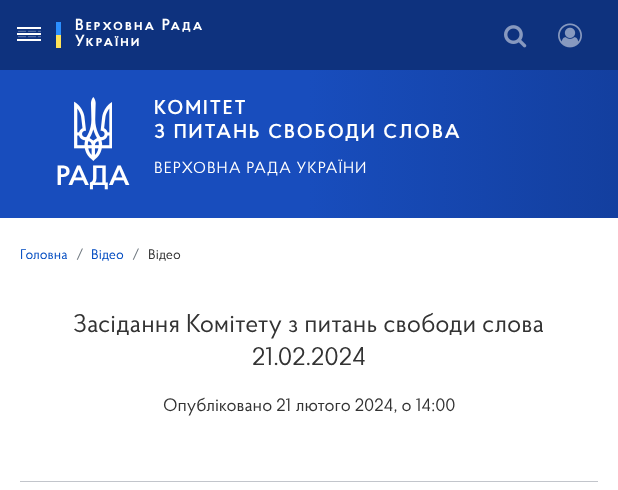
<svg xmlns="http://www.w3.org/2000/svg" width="618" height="490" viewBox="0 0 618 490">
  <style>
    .t1 { font: 600 16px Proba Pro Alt; letter-spacing: 2px; fill: #fff; }
    .t2 { font: 600 28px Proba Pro; fill: #fff; }
    .t3 { font: 600 20px Proba Pro; letter-spacing: 2px; fill: #fff; }
    .t4 { font: 16px Proba Pro; letter-spacing: 1px; fill: #fff; }
    .t5 { font: 14px Proba Pro; fill: #004bc1; }
    .t6 { font: 14px Proba Pro; fill: #6c757d; }
    .t7 { font: 14px Proba Pro; fill: #333; }
    .t8 { font: 25.6px Proba Pro; fill: #333; }
    .t9 { font: 18px Proba Pro; fill: #333; }
  </style>
  <defs>
    <linearGradient id="g1" gradientUnits="userSpaceOnUse" x1="0" y1="109" x2="618" y2="109"><stop offset="0" stop-color="#184dbd"/><stop offset="0.5" stop-color="#184dbd"/><stop offset="1" stop-color="#133f9f"/></linearGradient>
  </defs>
  <rect width="100%" height="100%" fill="#fff"/>
  <rect x="0" y="70" width="618" height="148" fill="url(#g1)"/>
  <rect x="0" y="0" width="618" height="70" fill="#0e327e"/>
  <image x="18" y="30" width="23" height="8" href="images/1.png"/>
  <rect x="17" y="27" width="24" height="2" fill="#fff"/>
  <rect x="17" y="39" width="24" height="2" fill="#fff"/>
  <rect x="17" y="33" width="24" height="2" fill="#fff"/>
  <rect x="56" y="35" width="5" height="13" fill="#ffe358"/>
  <rect x="56" y="22" width="5" height="13" fill="#2b8fff"/>
  <text x="75" y="30" class="t1">Верховна Рада</text>
  <text x="75" y="46" class="t1">України</text>
  <image x="504" y="25" width="23" height="23" href="images/2.png"/>
  <image x="558" y="23" width="24" height="25" href="images/3.png"/>
  <image x="74" y="97" width="38" height="64" href="images/4.png"/>
  <text x="56" y="185" class="t2">РАДА</text>
  <text x="154" y="114" class="t3">КОМІТЕТ</text>
  <text x="154" y="138" class="t3">З ПИТАНЬ СВОБОДИ СЛОВА</text>
  <text x="154" y="173" class="t4">ВЕРХОВНА РАДА УКРАЇНИ</text>
  <text x="20" y="259" class="t5">Головна</text>
  <text x="76" y="259" class="t6">/</text>
  <text x="91" y="259" class="t5">Відео</text>
  <text x="132" y="259" class="t6">/</text>
  <text x="148" y="259" class="t7">Відео</text>
  <rect x="20" y="481" width="578" height="1" fill="#c2c5cb"/>
  <text x="73" y="332" class="t8">Засідання Комітету з питань свободи слова</text>
  <text x="252" y="365" class="t8">21.02.2024</text>
  <text x="163" y="411" class="t9">Опубліковано 21 лютого 2024, о 14:00</text>
</svg>
